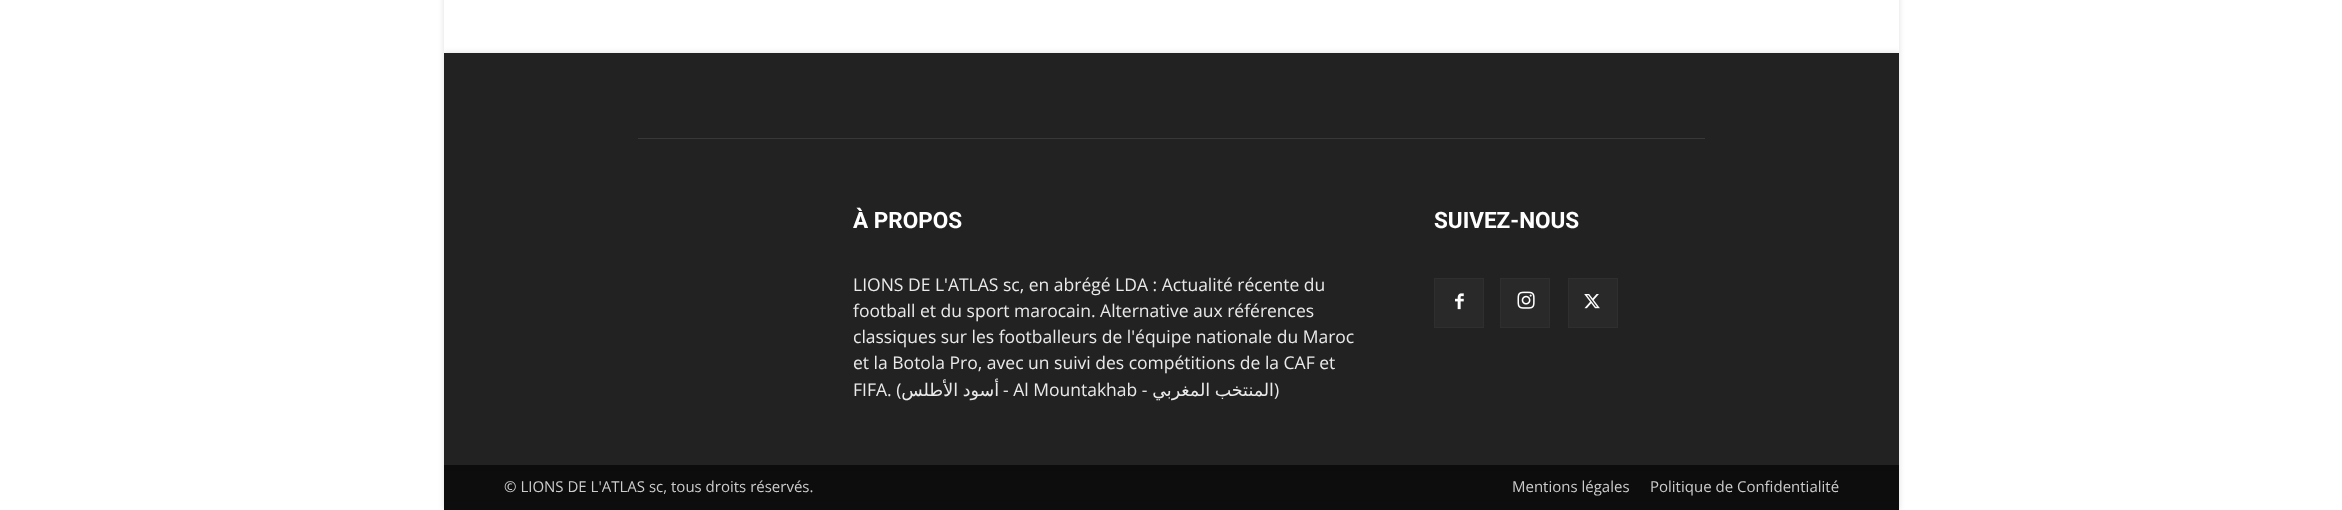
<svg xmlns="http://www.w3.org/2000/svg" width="2342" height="510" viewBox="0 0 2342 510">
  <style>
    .t1 { font: bold 22.5px Roboto; fill: #fff; }
    .t2 { font: 17.5px Open Sans; fill: #eaeaea; }
    .t3 { font: 17.5px DejaVu Sans; direction: rtl; fill: #eaeaea; }
    .t4 { font: 15px Open Sans; fill: #ccc; }
  </style>
  <rect width="100%" height="100%" fill="#fff"/>
  <rect x="444" y="-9" width="1455" height="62" fill="#0000001f" filter="blur(3px)"/>
  <rect x="444" y="0" width="1455" height="53" fill="#fff"/>
  <rect x="444" y="465" width="1455" height="45" fill="#0000001f" filter="blur(3px)"/>
  <rect x="444" y="465" width="1455" height="45" fill="#0d0d0d"/>
  <rect x="444" y="53" width="1455" height="412" fill="#0000001f" filter="blur(3px)"/>
  <rect x="444" y="53" width="1455" height="412" fill="#222"/>
  <rect x="638" y="138" width="1067" height="1" fill="#383838"/>
  <text x="853" y="228" class="t1">À PROPOS</text>
  <text x="853" y="291" class="t2">LIONS DE L'ATLAS sc, en abrégé LDA : Actualité récente du</text>
  <text x="853" y="317" class="t2">football et du sport marocain. Alternative aux références</text>
  <text x="853" y="343" class="t2">classiques sur les footballeurs de l'équipe nationale du Maroc</text>
  <text x="853" y="369" class="t2">et la Botola Pro, avec un suivi des compétitions de la CAF et</text>
  <text x="853" y="396" class="t2">FIFA. (</text>
  <text x="999" y="396" word-spacing="-1" class="t3">أسود الأطلس</text>
  <text x="1003" y="396" class="t2">- Al Mountakhab -</text>
  <text x="1274" y="396" word-spacing="-1" class="t3">المنتخب المغربي</text>
  <text x="1274" y="396" class="t2">)</text>
  <text x="1434" y="228" class="t1">SUIVEZ-NOUS</text>
  <rect x="1435" y="279" width="48" height="48" fill="#292929"/>
  <image x="1455" y="293" width="9" height="17" href="images/1.png"/>
  <rect x="1434.5" y="278.5" width="49" height="49" fill="none" stroke="#2f2f2f"/>
  <rect x="1501" y="279" width="48" height="48" fill="#292929"/>
  <image x="1517" y="291" width="18" height="18" href="images/2.png"/>
  <rect x="1500.5" y="278.5" width="49" height="49" fill="none" stroke="#2f2f2f"/>
  <rect x="1569" y="279" width="48" height="48" fill="#292929"/>
  <image x="1584" y="294" width="16" height="15" href="images/3.png"/>
  <rect x="1568.5" y="278.5" width="49" height="49" fill="none" stroke="#2f2f2f"/>
  <text x="504" y="492" class="t4">© LIONS DE L'ATLAS sc, tous droits réservés.</text>
  <text x="1512" y="492" class="t4">Mentions légales</text>
  <text x="1650" y="492" class="t4">Politique de Confidentialité</text>
</svg>
